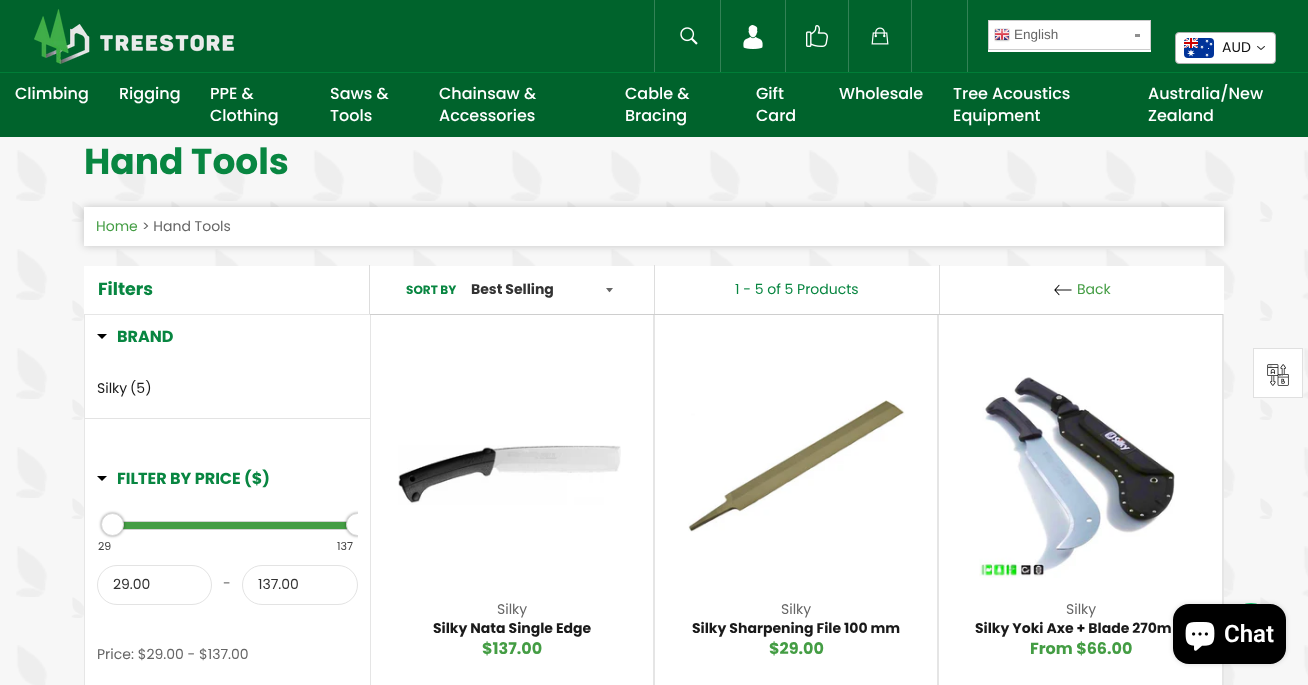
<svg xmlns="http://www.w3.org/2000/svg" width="1308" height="685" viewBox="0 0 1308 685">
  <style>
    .t1 { font: 13.5px Liberation Sans; fill: #666; }
    .t2 { font: 500 16px Poppins; fill: #fff; }
    .t3 { font: 14px Poppins; fill: #111; }
    .t4 { font: bold 36px Poppins; fill: #088641; }
    .t5 { font: 14px Poppins; fill: #449d44; }
    .t6 { font: 14px Poppins; fill: #666; }
    .t7 { font: bold 17.5px Poppins; fill: #088641; }
    .t8 { font: bold 12px Poppins; fill: #088641; }
    .t9 { font: bold 14px Poppins; fill: #333; }
    .t10 { font: 14px Poppins; fill: #088641; }
    .t11 { font: bold 16px Poppins; fill: #088641; }
    .t12 { font: 14px Poppins; fill: #1a1a1a; }
    .t13 { font: 11px Poppins; fill: #444; }
    .t14 { font: 14px Poppins; fill: #333; }
    .t15 { font: bold 14px Poppins; fill: #1a1a1a; }
    .t16 { font: bold 16px Poppins; fill: #449d44; }
    .t17 { font: 600 24px Roboto; fill: #fff; }
  </style>
  <defs>
    <clipPath id="clip1"><rect x="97" y="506" width="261" height="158"/></clipPath>
    <clipPath id="clip2"><rect x="97" y="506" width="261" height="158"/></clipPath>
  </defs>
  <rect width="100%" height="100%" fill="#f7f7f7"/>
  <rect x="0" y="0" width="1308" height="72" fill="#00632c"/>
  <image x="34" y="9" width="200" height="55" href="images/1.png"/>
  <rect x="654" y="0" width="1" height="72" fill="#338256"/>
  <image x="680" y="27" width="18" height="18" href="images/2.png"/>
  <rect x="720" y="0" width="1" height="72" fill="#338256"/>
  <image x="743" y="25" width="20" height="24" href="images/3.png"/>
  <rect x="785" y="0" width="1" height="72" fill="#338256"/>
  <image x="806" y="25" width="22" height="22" href="images/4.png"/>
  <rect x="848" y="0" width="1" height="72" fill="#338256"/>
  <image x="871" y="27" width="18" height="18" href="images/5.png"/>
  <rect x="911" y="0" width="1" height="72" fill="#338256"/>
  <rect x="967" y="0" width="1" height="72" fill="#338256"/>
  <rect x="988" y="21" width="163" height="31" fill="#fff"/>
  <rect x="1135" y="34" width="5" height="3" fill="#8f8f8f"/>
  <rect x="988.5" y="20.5" width="162" height="29" fill="none" stroke="#ccc"/>
  <image x="994" y="28" width="16" height="14" href="images/6.png"/>
  <text x="1014" y="39" class="t1">English</text>
  <rect x="0" y="72" width="1308" height="1" fill="#007d37"/>
  <rect x="0" y="73" width="1308" height="64" fill="#00632c"/>
  <text x="15" y="99" class="t2">Climbing</text>
  <text x="119" y="99" class="t2">Rigging</text>
  <text x="210" y="99" class="t2">PPE &amp;</text>
  <text x="210" y="121" class="t2">Clothing</text>
  <text x="330" y="99" class="t2">Saws &amp;</text>
  <text x="330" y="121" class="t2">Tools</text>
  <text x="439" y="99" class="t2">Chainsaw &amp;</text>
  <text x="439" y="121" class="t2">Accessories</text>
  <text x="625" y="99" class="t2">Cable &amp;</text>
  <text x="625" y="121" class="t2">Bracing</text>
  <text x="756" y="99" class="t2">Gift</text>
  <text x="756" y="121" class="t2">Card</text>
  <text x="839" y="99" class="t2">Wholesale</text>
  <text x="953" y="99" class="t2">Tree Acoustics</text>
  <text x="953" y="121" class="t2">Equipment</text>
  <text x="1148" y="99" class="t2">Australia/New</text>
  <text x="1148" y="121" class="t2">Zealand</text>
  <rect x="1175.5" y="32.5" width="100" height="31" rx="3.5" fill="#fff" stroke="#aeaeae"/>
  <image x="1184" y="38" width="30" height="20" href="images/7.png"/>
  <text x="1222" y="52" class="t3">AUD</text>
  <image x="1257" y="46" width="8" height="4" href="images/8.png"/>
  <image x="16" y="150" width="1292" height="535" href="images/9.png"/>
  <text x="84" y="174" class="t4">Hand Tools</text>
  <rect x="84" y="207" width="1140" height="39" fill="#00000033" filter="blur(4px)"/>
  <rect x="84" y="207" width="1140" height="39" fill="#fff"/>
  <text x="96" y="231" class="t5">Home</text>
  <text x="142" y="231" class="t6">&gt; Hand Tools</text>
  <rect x="84" y="266" width="1140" height="48" fill="#fff"/>
  <text x="98" y="295" class="t7">Filters</text>
  <rect x="369" y="265" width="1" height="50" fill="#ddd"/>
  <text x="406" y="294" class="t8">SORT BY</text>
  <path d="M606 288C610.5 293.5 608.5 293.5 613 288Z" fill="#666"/>
  <text x="471" y="294" class="t9">Best Selling</text>
  <rect x="654" y="265" width="1" height="50" fill="#ddd"/>
  <text x="735" y="294" class="t10">1 - 5 of 5 Products</text>
  <rect x="939" y="265" width="1" height="50" fill="#ddd"/>
  <image x="1054" y="284" width="18" height="12" href="images/10.png"/>
  <text x="1077" y="294" class="t5">Back</text>
  <rect x="84.5" y="314.5" width="1139" height="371" fill="#fff" stroke="#e6e6e6"/>
  <rect x="85" y="418" width="285" height="1" fill="#e3e3e3"/>
  <path d="M97 334H107L102 339Z" fill="#000"/>
  <text x="117" y="342" class="t11">BRAND</text>
  <text x="97" y="393" class="t12">Silky</text>
  <text x="130" y="393" class="t12">(5)</text>
  <path d="M97 476H107L102 481Z" fill="#000"/>
  <text x="117" y="484" class="t11">FILTER BY PRICE ($)</text>
  <rect x="104.5" y="521.5" width="246" height="8" fill="none" stroke="#d3d3d3"/>
  <rect x="123" y="522" width="227" height="7" fill="#449d44"/>
  <rect x="101" y="513" width="23" height="23" rx="11.5" fill="#00000066" filter="blur(1.5px)"/>
  <circle cx="112.5" cy="524.5" r="11" fill="#fff" stroke="#d9d9d9"/>
  <rect x="370.5" y="314.5" width="283" height="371" fill="none" stroke="#0000001a"/>
  <g clip-path="url(#clip1)">
    <rect x="346" y="513" width="23" height="23" rx="11.5" fill="#00000066" filter="blur(1.5px)"/>
  </g>
  <g clip-path="url(#clip2)">
    <circle cx="357.5" cy="524.5" r="11" fill="#fff" stroke="#d9d9d9"/>
  </g>
  <text x="98" y="550" class="t13">29</text>
  <text x="337" y="550" class="t13">137</text>
  <rect x="97.5" y="565.5" width="114" height="39" rx="19.5" fill="none" stroke="#e3e3e3"/>
  <text x="113" y="589" class="t14">29.00</text>
  <text x="223" y="588" class="t6">-</text>
  <rect x="242.5" y="565.5" width="115" height="39" rx="19.5" fill="none" stroke="#e3e3e3"/>
  <text x="258" y="589" class="t14">137.00</text>
  <text x="97" y="659" class="t6">Price: $29.00 - $137.00</text>
  <image x="398" y="445" width="223" height="60" href="images/11.png"/>
  <text x="497" y="614" class="t6">Silky</text>
  <text x="433" y="633" class="t15">Silky Nata Single Edge</text>
  <text x="482" y="654" class="t16">$137.00</text>
  <rect x="654.5" y="314.5" width="283" height="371" fill="none" stroke="#0000001a"/>
  <image x="688" y="400" width="217" height="132" href="images/12.png"/>
  <text x="781" y="614" class="t6">Silky</text>
  <text x="692" y="633" class="t15">Silky Sharpening File 100 mm</text>
  <text x="769" y="654" class="t16">$29.00</text>
  <rect x="938.5" y="314.5" width="284" height="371" fill="none" stroke="#0000001a"/>
  <image x="979" y="377" width="196" height="201" href="images/13.png"/>
  <text x="1066" y="614" class="t6">Silky</text>
  <text x="975" y="633" class="t15">Silky Yoki Axe + Blade 270m</text>
  <text x="1030" y="654" class="t16">From $66.00</text>
  <rect x="1253.5" y="348.5" width="49" height="49" fill="#fff" stroke="#e0e0e0"/>
  <image x="1267" y="364" width="22" height="22" href="images/14.png"/>
  <circle cx="1251" cy="628" r="25" fill="#15cb71"/>
  <rect x="1173" y="604" width="113" height="60" rx="16" fill="#00000026" filter="blur(2.5px)"/>
  <rect x="1173" y="604" width="113" height="60" rx="16" fill="#000"/>
  <image x="1185" y="622" width="30" height="29" href="images/15.png"/>
  <text x="1224" y="642" class="t17">Chat</text>
</svg>
